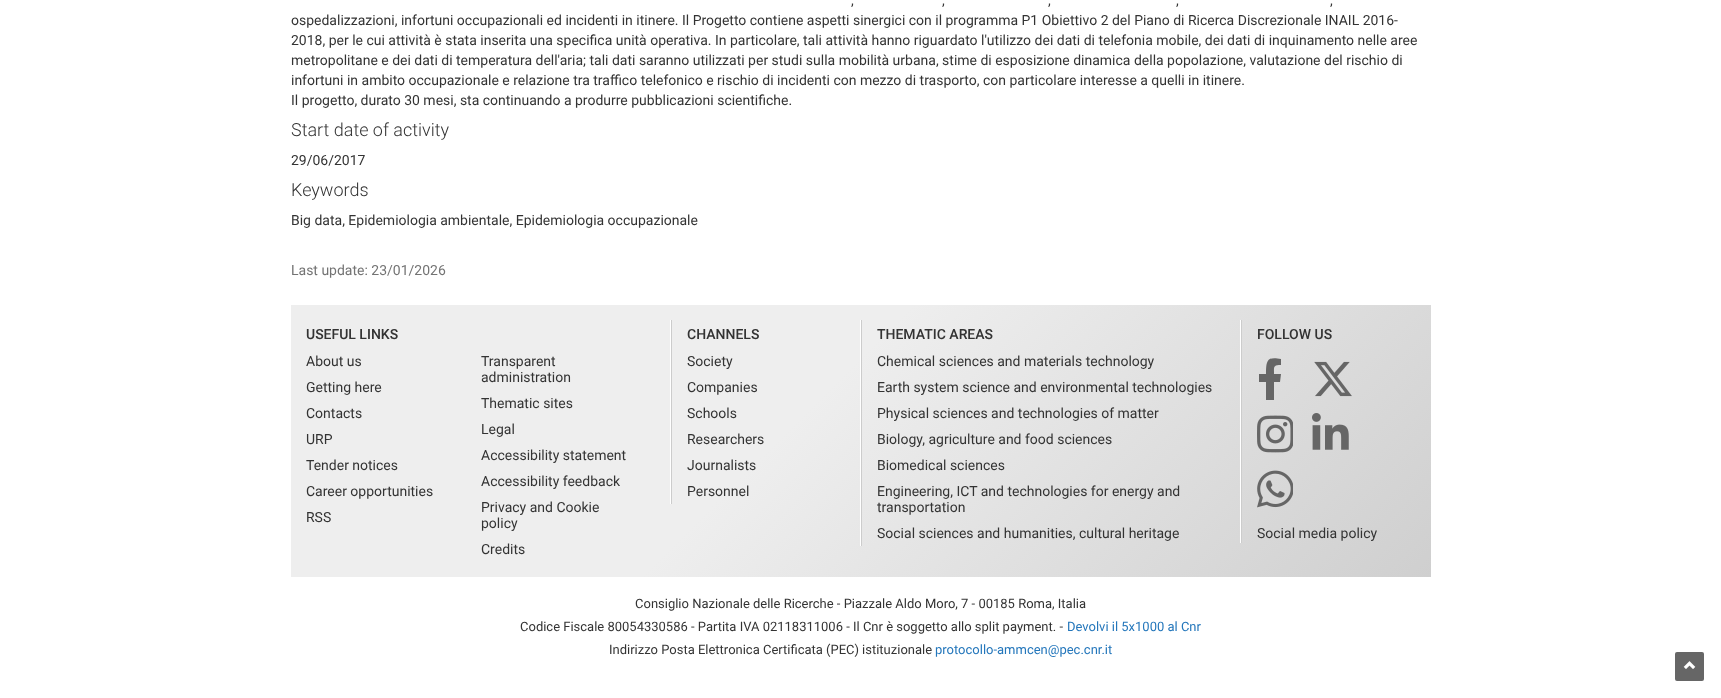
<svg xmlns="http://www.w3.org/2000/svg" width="1721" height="698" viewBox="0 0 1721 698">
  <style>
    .t1 { font: 14px Roboto; fill: #333; }
    .t2 { font: 300 18px Roboto; fill: #333; }
    .t3 { font: 14px Roboto; fill: #737373; }
    .t4 { font: 500 14px Roboto; fill: #333; }
    .t5 { font: 13px Roboto; fill: #333; }
    .t6 { font: 13px Roboto; fill: #2376bb; }
  </style>
  <defs>
    <linearGradient id="g1" gradientUnits="userSpaceOnUse" x1="508" y1="88" x2="1214" y2="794"><stop offset="0.44" stop-color="#eee"/><stop offset="1" stop-color="#cfcfcf"/></linearGradient>
  </defs>
  <rect width="100%" height="100%" fill="#fff"/>
  <text x="851" y="5" class="t1">,</text>
  <text x="942" y="5" class="t1">,</text>
  <text x="1048" y="5" class="t1">,</text>
  <text x="1176" y="5" class="t1">,</text>
  <text x="1330" y="5" class="t1">,</text>
  <text x="291" y="25" class="t1">ospedalizzazioni, infortuni occupazionali ed incidenti in itinere. Il Progetto contiene aspetti sinergici con il programma P1 Obiettivo 2 del Piano di Ricerca Discrezionale INAIL 2016-</text>
  <text x="291" y="45" class="t1">2018, per le cui attività è stata inserita una specifica unità operativa. In particolare, tali attività hanno riguardato l'utilizzo dei dati di telefonia mobile, dei dati di inquinamento nelle aree</text>
  <text x="291" y="65" class="t1">metropolitane e dei dati di temperatura dell'aria; tali dati saranno utilizzati per studi sulla mobilità urbana, stime di esposizione dinamica della popolazione, valutazione del rischio di</text>
  <text x="291" y="85" class="t1">infortuni in ambito occupazionale e relazione tra traffico telefonico e rischio di incidenti con mezzo di trasporto, con particolare interesse a quelli in itinere.</text>
  <text x="291" y="105" class="t1">Il progetto, durato 30 mesi, sta continuando a produrre pubblicazioni scientifiche.</text>
  <text x="291" y="136" class="t2">Start date of activity</text>
  <text x="291" y="165" class="t1">29/06/2017</text>
  <text x="291" y="196" class="t2">Keywords</text>
  <text x="291" y="225" class="t1">Big data, Epidemiologia ambientale, Epidemiologia occupazionale</text>
  <text x="291" y="275" class="t3">Last update: 23/01/2026</text>
  <rect x="291" y="305" width="1140" height="272" fill="url(#g1)"/>
  <text x="306" y="339" class="t4">USEFUL LINKS</text>
  <text x="306" y="366" class="t1">About us</text>
  <text x="306" y="392" class="t1">Getting here</text>
  <text x="306" y="418" class="t1">Contacts</text>
  <text x="306" y="444" class="t1">URP</text>
  <text x="306" y="470" class="t1">Tender notices</text>
  <text x="306" y="496" class="t1">Career opportunities</text>
  <text x="306" y="522" class="t1">RSS</text>
  <text x="481" y="366" class="t1">Transparent</text>
  <text x="481" y="382" class="t1">administration</text>
  <text x="481" y="408" class="t1">Thematic sites</text>
  <text x="481" y="434" class="t1">Legal</text>
  <text x="481" y="460" class="t1">Accessibility statement</text>
  <text x="481" y="486" class="t1">Accessibility feedback</text>
  <text x="481" y="512" class="t1">Privacy and Cookie</text>
  <text x="481" y="528" class="t1">policy</text>
  <text x="481" y="554" class="t1">Credits</text>
  <rect x="670" y="320" width="1" height="184" fill="#fff"/>
  <rect x="671" y="320" width="1" height="184" fill="#ccc"/>
  <text x="687" y="339" class="t4">CHANNELS</text>
  <text x="687" y="366" class="t1">Society</text>
  <text x="687" y="392" class="t1">Companies</text>
  <text x="687" y="418" class="t1">Schools</text>
  <text x="687" y="444" class="t1">Researchers</text>
  <text x="687" y="470" class="t1">Journalists</text>
  <text x="687" y="496" class="t1">Personnel</text>
  <rect x="860" y="320" width="1" height="226" fill="#fff"/>
  <rect x="861" y="320" width="1" height="226" fill="#ccc"/>
  <text x="877" y="339" class="t4">THEMATIC AREAS</text>
  <text x="877" y="366" class="t1">Chemical sciences and materials technology</text>
  <text x="877" y="392" class="t1">Earth system science and environmental technologies</text>
  <text x="877" y="418" class="t1">Physical sciences and technologies of matter</text>
  <text x="877" y="444" class="t1">Biology, agriculture and food sciences</text>
  <text x="877" y="470" class="t1">Biomedical sciences</text>
  <text x="877" y="496" class="t1">Engineering, ICT and technologies for energy and</text>
  <text x="877" y="512" class="t1">transportation</text>
  <text x="877" y="538" class="t1">Social sciences and humanities, cultural heritage</text>
  <rect x="1240" y="320" width="1" height="223" fill="#fff"/>
  <rect x="1241" y="320" width="1" height="223" fill="#ccc"/>
  <text x="1257" y="339" class="t4">FOLLOW US</text>
  <path d="M1280 382L1281 374H1274C1274 367 1273 365 1281 365V359C1267 356 1266 361 1266 374H1259V382H1266V400H1274V382Z" fill="#666"/>
  <image x="1314" y="361" width="38" height="36" href="images/1.png"/>
  <image x="1257" y="415" width="36" height="38" href="images/2.png"/>
  <image x="1312" y="413" width="37" height="37" href="images/3.png"/>
  <image x="1257" y="470" width="36" height="38" href="images/4.png"/>
  <text x="1257" y="538" class="t1">Social media policy</text>
  <text x="635" y="608" class="t5">Consiglio Nazionale delle Ricerche - Piazzale Aldo Moro, 7 - 00185 Roma, Italia</text>
  <text x="520" y="631" class="t5">Codice Fiscale 80054330586 - Partita IVA 02118311006 - Il Cnr è soggetto allo split payment. -</text>
  <text x="1067" y="631" class="t6">Devolvi il 5x1000 al Cnr</text>
  <text x="609" y="654" class="t5">Indirizzo Posta Elettronica Certificata (PEC) istituzionale</text>
  <text x="935" y="654" class="t6">protocollo-ammcen@pec.cnr.it</text>
  <rect x="1675" y="652" width="29" height="29" rx="2" fill="#666"/>
  <image x="1683" y="661" width="13" height="8" href="images/5.png"/>
</svg>
